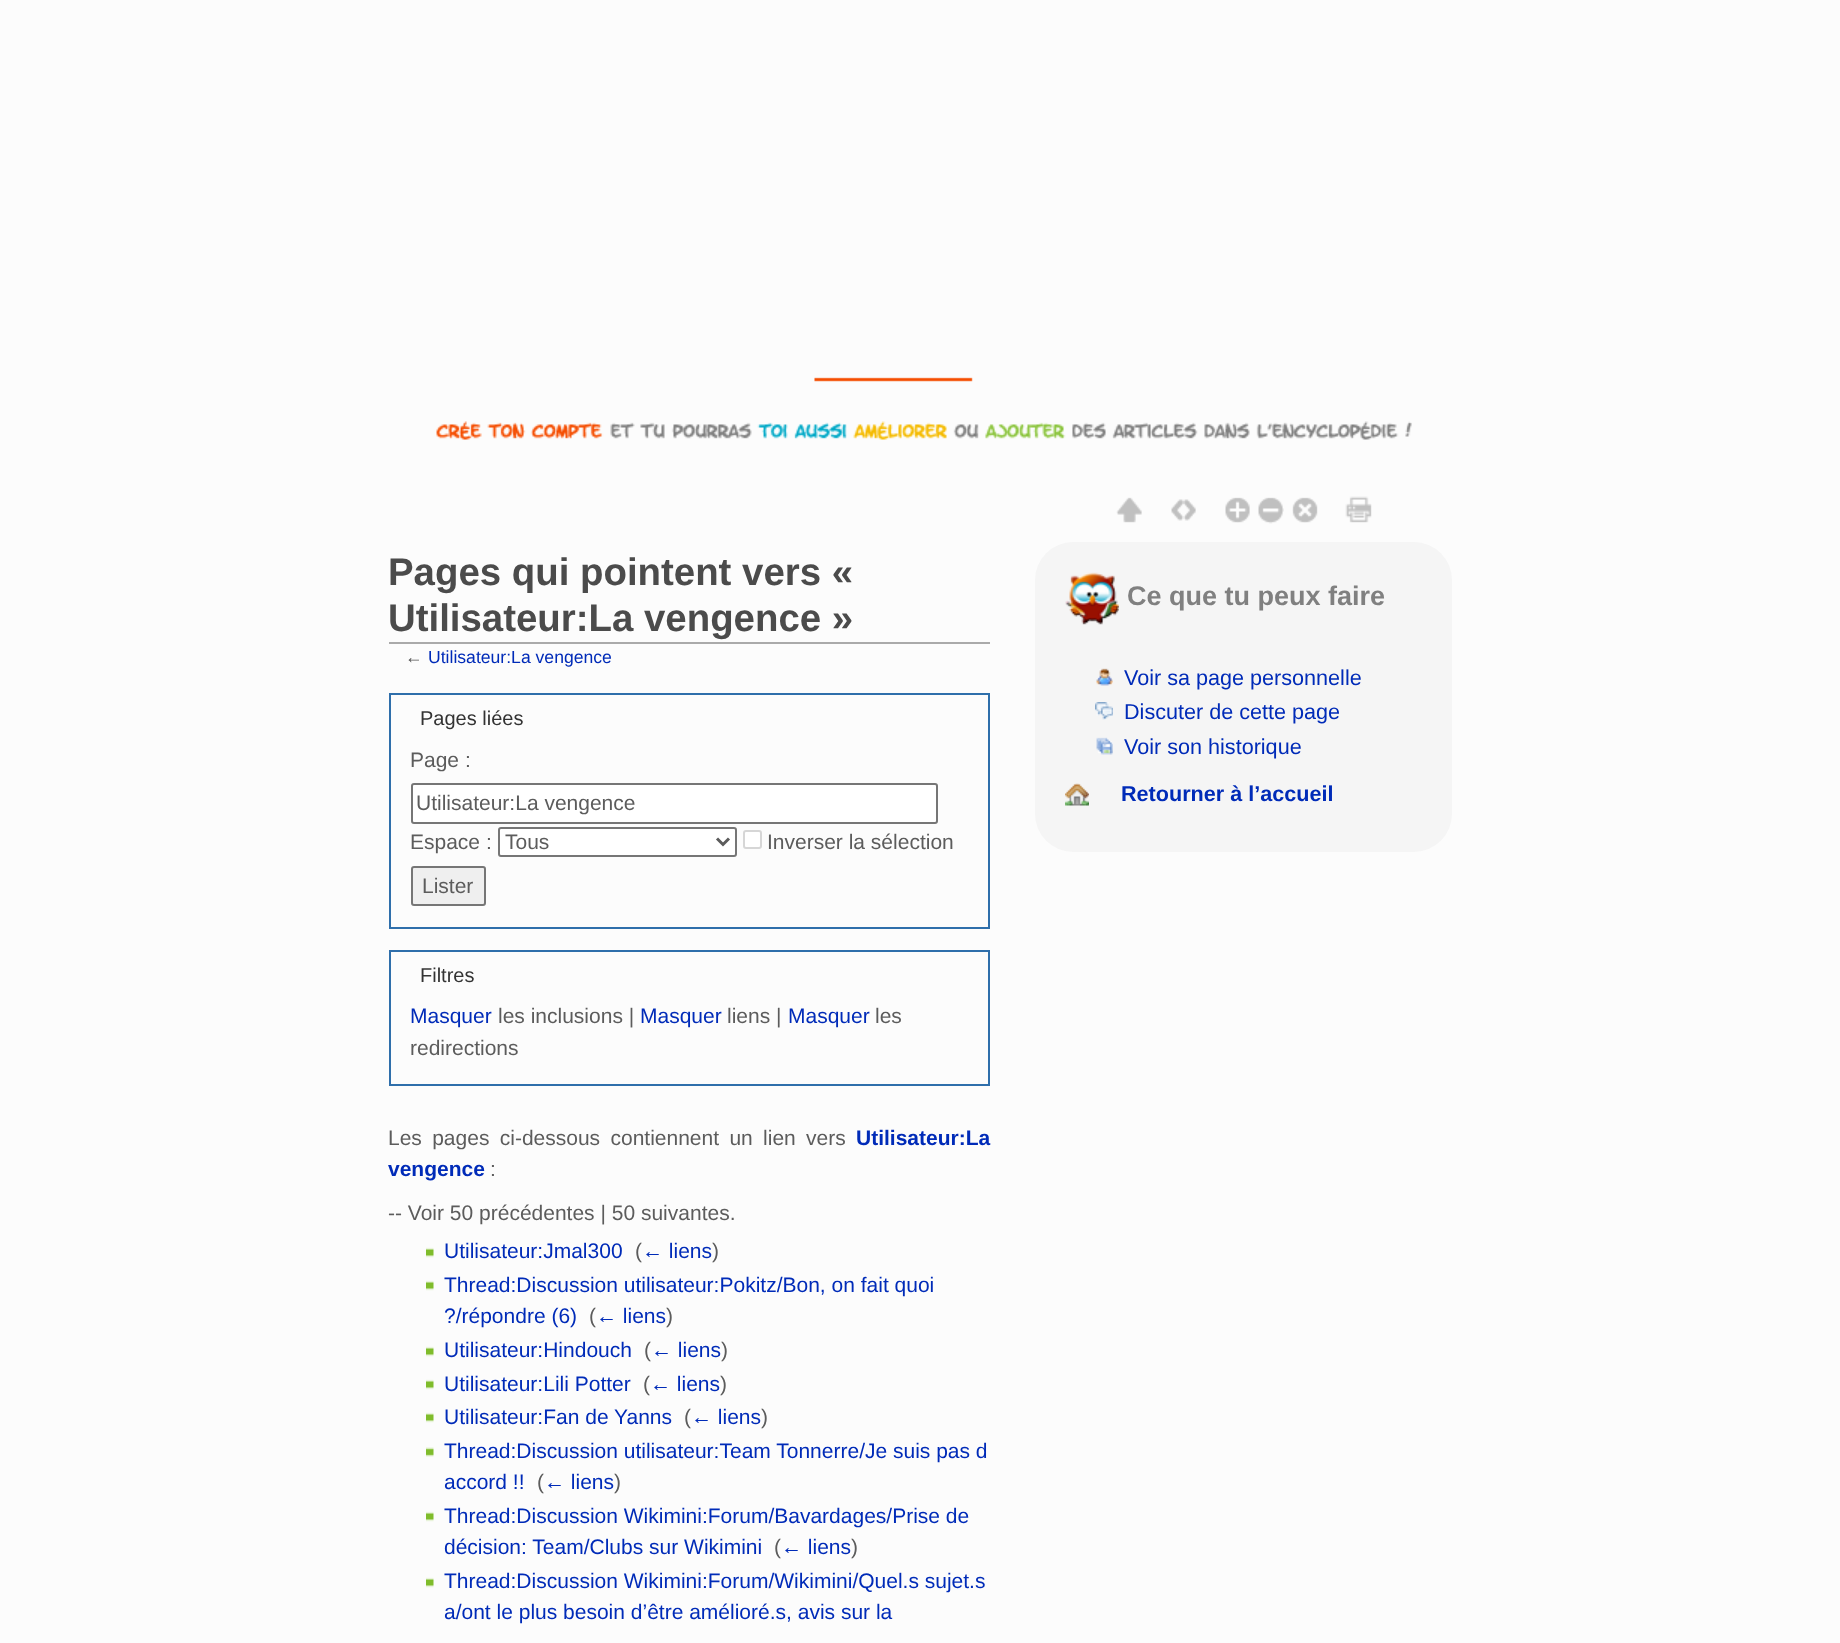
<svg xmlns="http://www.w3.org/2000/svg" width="1840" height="1643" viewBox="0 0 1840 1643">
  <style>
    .t1 { font: bold 38.4px Liberation Sans; fill: #4b4b4b; }
    .t2 { font: 17.6px Liberation Sans; fill: #545454; }
    .t3 { font: 17.6px Liberation Sans; fill: #002bb8; }
    .t4 { font: 20px Liberation Sans; fill: #333; }
    .t5 { font: 21px Liberation Sans; fill: #5c5c5c; }
    .t6 { font: 21px Liberation Sans; fill: #002bb8; }
    .t7 { font: bold 21px Liberation Sans; fill: #002bb8; }
    .t8 { font: bold 27px Liberation Sans; fill: #808080; }
    .t9 { font: 21.6px Liberation Sans; fill: #002bb8; }
    .t10 { font: bold 21.6px Liberation Sans; fill: #002bb8; }
  </style>
  <rect width="100%" height="100%" fill="#fcfcfc"/>
  <image x="814" y="377" width="159" height="5" href="images/1.png"/>
  <image x="436" y="421" width="976" height="19" href="images/2.png"/>
  <rect x="389" y="642" width="601" height="2" fill="#aaa"/>
  <text x="388" y="585" class="t1">Pages qui pointent vers «</text>
  <text x="388" y="631" class="t1">Utilisateur:La vengence »</text>
  <text x="405" y="663" class="t2">←</text>
  <text x="428" y="663" class="t3">Utilisateur:La vengence</text>
  <rect x="390" y="694" width="599" height="234" fill="none" stroke="#2f6fab" stroke-width="2"/>
  <text x="420" y="725" class="t4">Pages liées</text>
  <text x="410" y="767" class="t5">Page :</text>
  <rect x="412" y="784" width="525" height="39" rx="2" fill="#fff" stroke="#767676" stroke-width="2"/>
  <text x="416" y="810" class="t5">Utilisateur:La vengence</text>
  <text x="410" y="849" class="t5">Espace :</text>
  <rect x="499" y="828" width="237" height="28" rx="2" fill="#fff" stroke="#767676" stroke-width="2"/>
  <path d="M717 838.5L723 844.5L729 838.5" fill="none" stroke="#5c5c5c" stroke-width="3"/>
  <text x="505" y="849" class="t5">Tous</text>
  <rect x="744" y="831" width="17" height="17" rx="2" fill="#fff" stroke="#d6d6d6" stroke-width="2"/>
  <text x="767" y="849" class="t5">Inverser la sélection</text>
  <rect x="412" y="867" width="73" height="38" rx="2" fill="#efefef" stroke="#767676" stroke-width="2"/>
  <text x="422" y="893" class="t5">Lister</text>
  <rect x="390" y="951" width="599" height="134" fill="none" stroke="#2f6fab" stroke-width="2"/>
  <text x="420" y="982" class="t4">Filtres</text>
  <text x="410" y="1023" class="t6">Masquer</text>
  <text x="498" y="1023" class="t5">les inclusions |</text>
  <text x="640" y="1023" class="t6">Masquer</text>
  <text x="727" y="1023" class="t5">liens |</text>
  <text x="788" y="1023" class="t6">Masquer</text>
  <text x="875" y="1023" class="t5">les</text>
  <text x="410" y="1055" class="t5">redirections</text>
  <text x="388" y="1145" word-spacing="4.5" class="t5">Les pages ci-dessous contiennent un lien vers</text>
  <text x="856" y="1145" class="t7">Utilisateur:La</text>
  <text x="388" y="1176" class="t7">vengence</text>
  <text x="490" y="1176" class="t5">:</text>
  <text x="388" y="1220" class="t5">-- Voir 50 précédentes | 50 suivantes.</text>
  <image x="426" y="1247" width="8" height="11" href="images/3.png"/>
  <text x="444" y="1258" class="t6">Utilisateur:Jmal300</text>
  <text x="635" y="1258" class="t5">(</text>
  <text x="642" y="1258" class="t6">← liens</text>
  <text x="712" y="1258" class="t5">)</text>
  <image x="426" y="1280" width="8" height="11" href="images/3.png"/>
  <text x="444" y="1292" class="t6">Thread:Discussion utilisateur:Pokitz/Bon, on fait quoi</text>
  <text x="444" y="1323" class="t6">?/répondre (6)</text>
  <text x="589" y="1323" class="t5">(</text>
  <text x="596" y="1323" class="t6">← liens</text>
  <text x="666" y="1323" class="t5">)</text>
  <image x="426" y="1346" width="8" height="11" href="images/3.png"/>
  <text x="444" y="1357" class="t6">Utilisateur:Hindouch</text>
  <text x="644" y="1357" class="t5">(</text>
  <text x="651" y="1357" class="t6">← liens</text>
  <text x="721" y="1357" class="t5">)</text>
  <image x="426" y="1379" width="8" height="11" href="images/3.png"/>
  <text x="444" y="1391" class="t6">Utilisateur:Lili Potter</text>
  <text x="643" y="1391" class="t5">(</text>
  <text x="650" y="1391" class="t6">← liens</text>
  <text x="720" y="1391" class="t5">)</text>
  <image x="426" y="1412" width="8" height="11" href="images/3.png"/>
  <text x="444" y="1424" class="t6">Utilisateur:Fan de Yanns</text>
  <text x="684" y="1424" class="t5">(</text>
  <text x="691" y="1424" class="t6">← liens</text>
  <text x="761" y="1424" class="t5">)</text>
  <image x="426" y="1447" width="8" height="10" href="images/4.png"/>
  <text x="444" y="1458" class="t6">Thread:Discussion utilisateur:Team Tonnerre/Je suis pas d</text>
  <text x="444" y="1489" class="t6">accord !!</text>
  <text x="537" y="1489" class="t5">(</text>
  <text x="544" y="1489" class="t6">← liens</text>
  <text x="614" y="1489" class="t5">)</text>
  <image x="426" y="1511" width="8" height="11" href="images/3.png"/>
  <text x="444" y="1523" class="t6">Thread:Discussion Wikimini:Forum/Bavardages/Prise de</text>
  <text x="444" y="1554" class="t6">décision: Team/Clubs sur Wikimini</text>
  <text x="774" y="1554" class="t5">(</text>
  <text x="781" y="1554" class="t6">← liens</text>
  <text x="851" y="1554" class="t5">)</text>
  <image x="426" y="1577" width="8" height="11" href="images/3.png"/>
  <text x="444" y="1588" class="t6">Thread:Discussion Wikimini:Forum/Wikimini/Quel.s sujet.s</text>
  <text x="444" y="1619" class="t6">a/ont le plus besoin d’être amélioré.s, avis sur la</text>
  <image x="1116" y="497" width="26" height="26" href="images/5.png"/>
  <image x="1171" y="499" width="25" height="22" href="images/6.png"/>
  <image x="1225" y="497" width="25" height="26" href="images/7.png"/>
  <image x="1258" y="497" width="26" height="27" href="images/8.png"/>
  <image x="1292" y="497" width="26" height="26" href="images/9.png"/>
  <image x="1345" y="496" width="27" height="27" href="images/10.png"/>
  <rect x="1035" y="542" width="417" height="310" rx="38" fill="#f5f5f5"/>
  <image x="1065" y="572" width="54" height="53" href="images/11.png"/>
  <text x="1127" y="605" class="t8">Ce que tu peux faire</text>
  <image x="1096" y="668" width="17" height="18" href="images/12.png"/>
  <text x="1124" y="685" class="t9">Voir sa page personnelle</text>
  <image x="1095" y="702" width="18" height="18" href="images/13.png"/>
  <text x="1124" y="719" class="t9">Discuter de cette page</text>
  <image x="1096" y="737" width="17" height="18" href="images/14.png"/>
  <text x="1124" y="754" class="t9">Voir son historique</text>
  <image x="1065" y="783" width="24" height="23" href="images/15.png"/>
  <text x="1121" y="801" class="t10">Retourner à l’accueil</text>
</svg>
